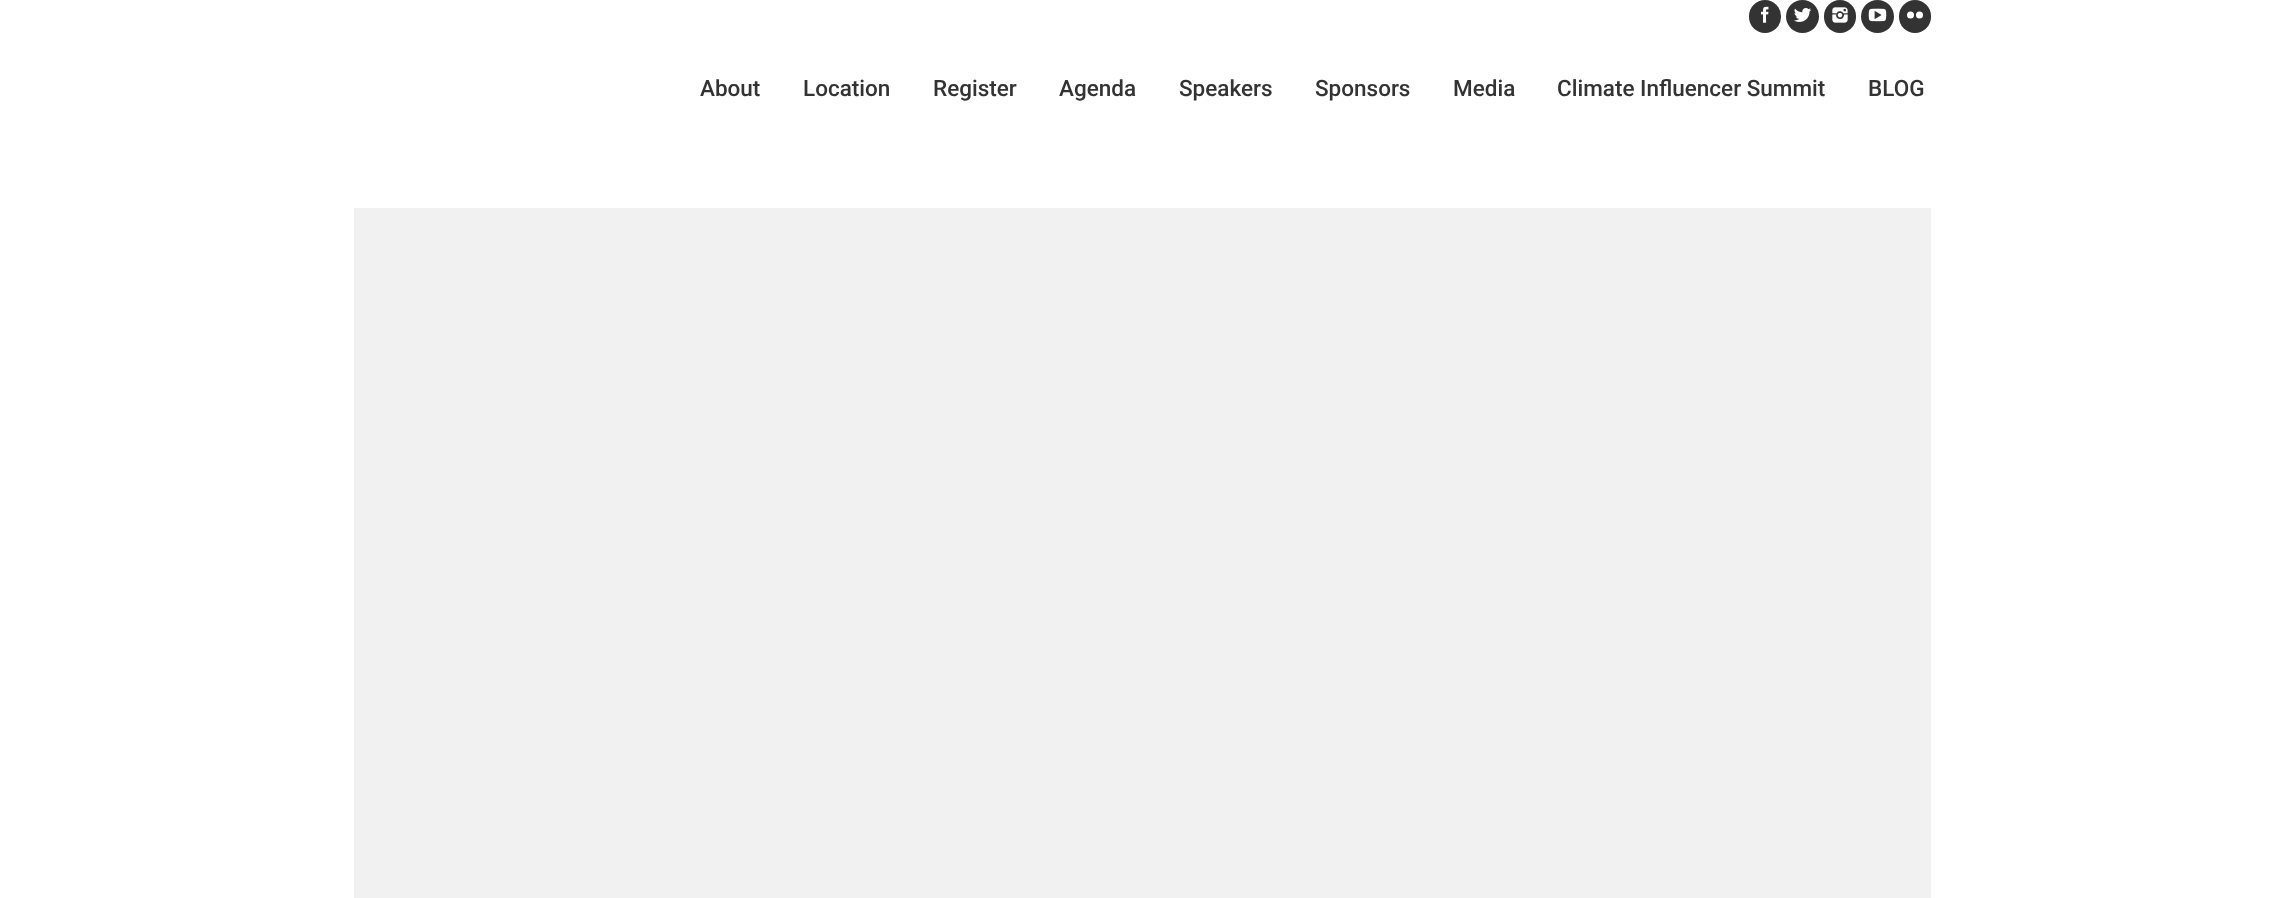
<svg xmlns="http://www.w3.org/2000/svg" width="2285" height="898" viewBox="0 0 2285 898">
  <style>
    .t1 { font: 500 22.5px Roboto; fill: #333; }
  </style>
  <rect width="100%" height="100%" fill="#fff"/>
  <rect x="1749" y="0" width="32" height="33" rx="16" fill="#333"/>
  <image x="1761" y="6" width="8" height="17" href="images/1.png"/>
  <circle cx="1802.5" cy="16.5" r="16.5" fill="#333"/>
  <image x="1794" y="8" width="18" height="14" href="images/2.png"/>
  <rect x="1824" y="0" width="32" height="33" rx="16" fill="#333"/>
  <image x="1832" y="7" width="16" height="16" href="images/3.png"/>
  <circle cx="1877.5" cy="16.5" r="16.5" fill="#333"/>
  <image x="1868" y="8" width="19" height="14" href="images/4.png"/>
  <rect x="1899" y="0" width="32" height="33" rx="16" fill="#333"/>
  <circle cx="1910.5" cy="15" r="3.5" fill="#fff"/>
  <circle cx="1919.5" cy="15" r="3.5" fill="#fff"/>
  <text x="700" y="96" class="t1">About</text>
  <text x="803" y="96" class="t1">Location</text>
  <text x="933" y="96" class="t1">Register</text>
  <text x="1059" y="96" class="t1">Agenda</text>
  <text x="1179" y="96" class="t1">Speakers</text>
  <text x="1315" y="96" class="t1">Sponsors</text>
  <text x="1453" y="96" class="t1">Media</text>
  <text x="1557" y="96" class="t1">Climate Influencer Summit</text>
  <text x="1868" y="96" class="t1">BLOG</text>
  <rect x="354" y="208" width="1577" height="690" fill="#f1f1f1"/>
</svg>
